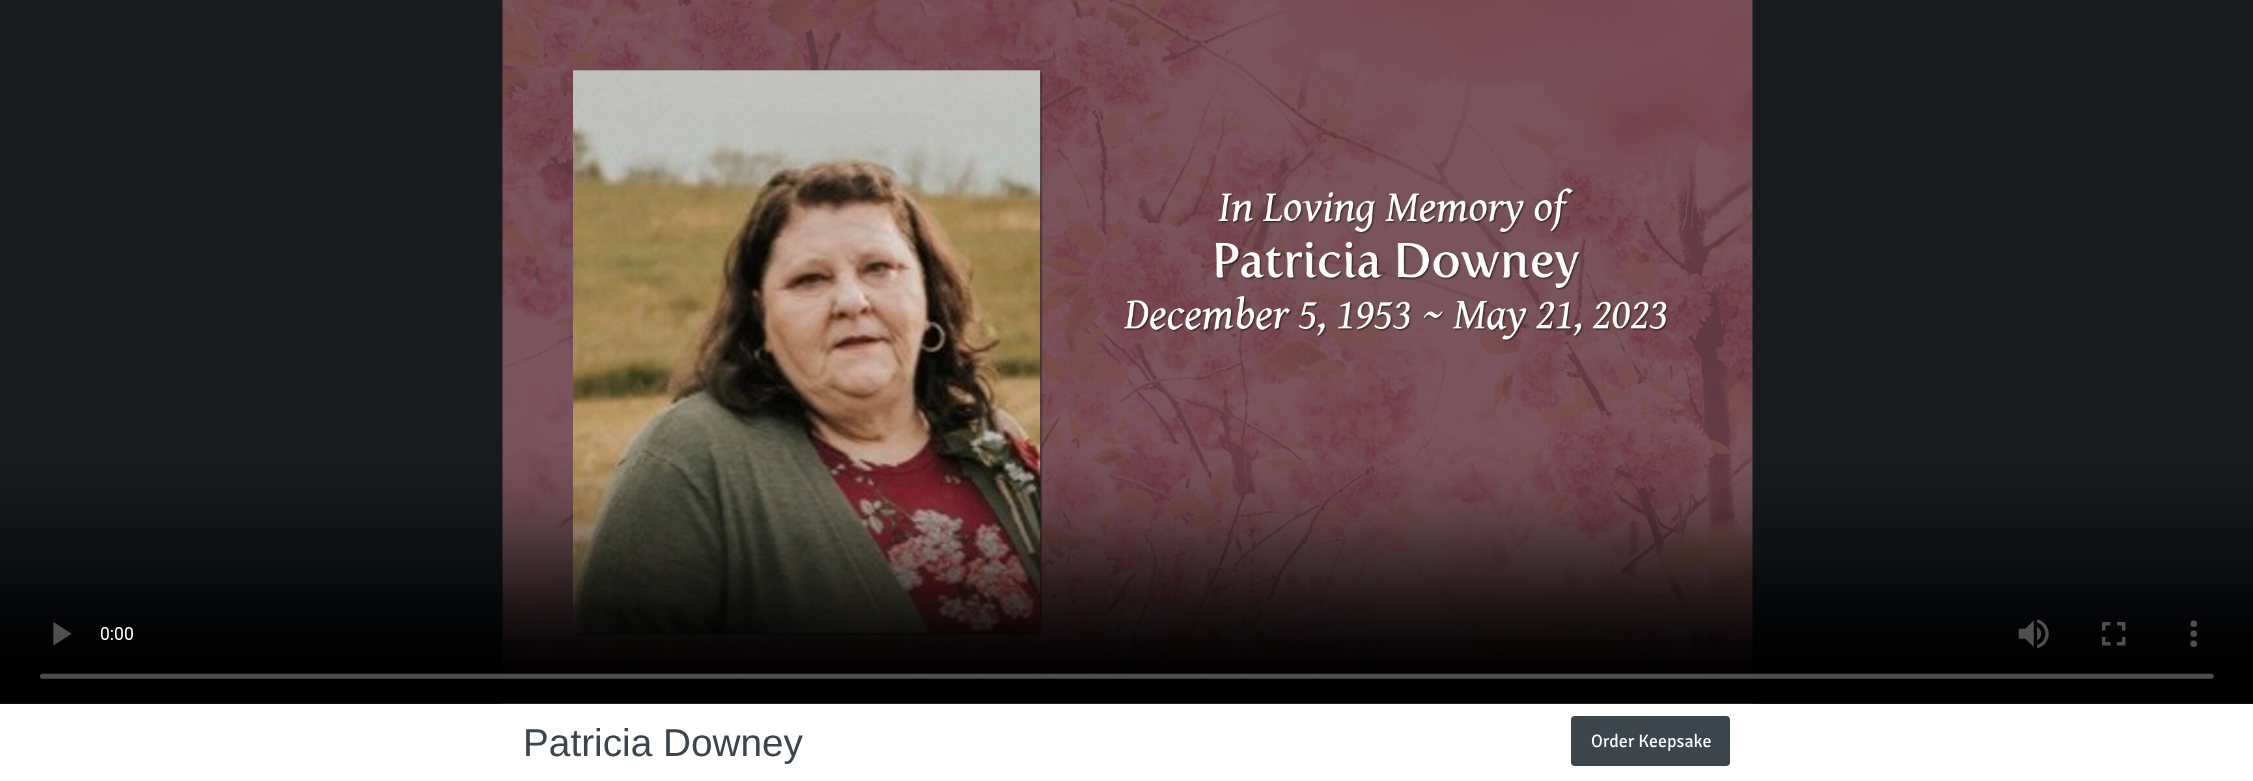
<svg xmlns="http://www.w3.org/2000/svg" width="2253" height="781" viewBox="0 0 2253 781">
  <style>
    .t1 { font: 38.75px Liberation Sans; fill: #3c444c; }
    .t2 { font: 18px Signika Negative; fill: #fefefe; }
  </style>
  <rect width="100%" height="100%" fill="#fff"/>
  <rect x="0" y="0" width="2253" height="704" fill="#181c1f"/>
  <image x="0" y="0" width="2253" height="704" href="images/1.png"/>
  <text x="523" y="756" class="t1">Patricia Downey</text>
  <rect x="1571" y="716" width="159" height="50" rx="4" fill="#3c444c"/>
  <text x="1591" y="747" class="t2">Order Keepsake</text>
</svg>
